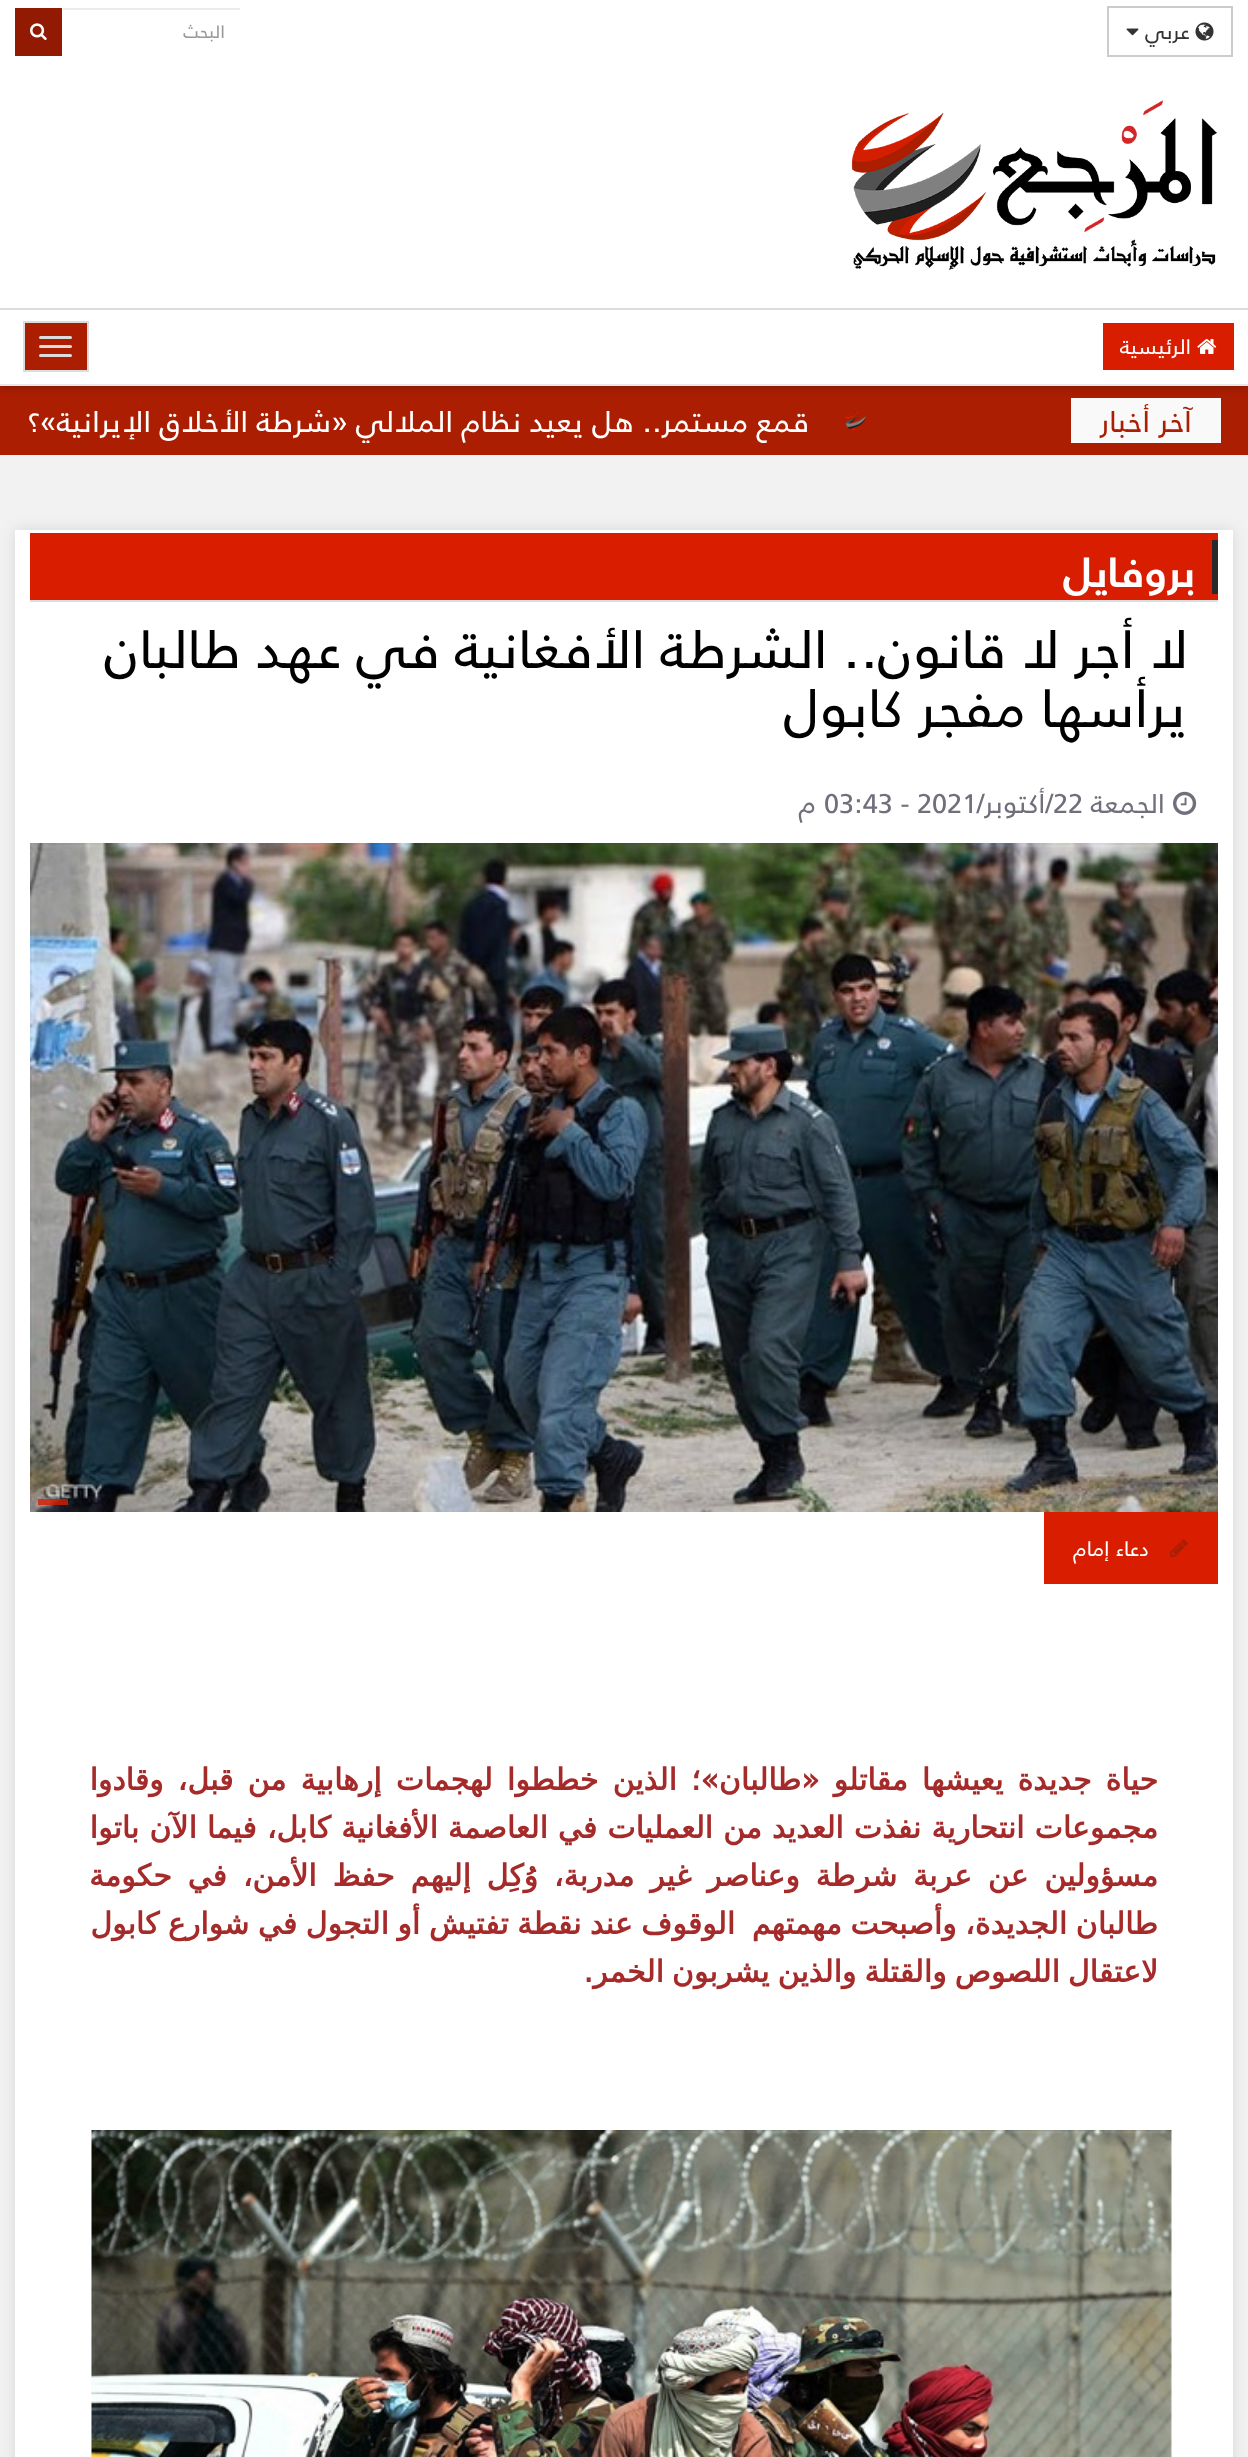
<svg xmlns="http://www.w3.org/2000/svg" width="1248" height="2457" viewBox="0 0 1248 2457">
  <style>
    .t1 { font: 21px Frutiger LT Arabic; direction: rtl; fill: #333; }
    .t2 { font: 18px Frutiger LT Arabic; direction: rtl; fill: #999; }
    .t3 { font: 21px Frutiger LT Arabic; direction: rtl; fill: #fff; }
    .t4 { font: 30px Frutiger LT Arabic; direction: rtl; fill: #ab1e02; }
    .t5 { font: 30px Frutiger LT Arabic; direction: rtl; fill: #fff; }
    .t6 { font: bold 42px Frutiger LT Arabic; direction: rtl; fill: #fff; }
    .t7 { font: 54px Frutiger LT Arabic; direction: rtl; fill: #000; }
    .t8 { font: 27px Frutiger LT Arabic; direction: rtl; fill: #70707d; }
    .t9 { font: 27px Frutiger LT Arabic; fill: #70707d; }
    .t10 { font: bold 30px DejaVu Sans; direction: rtl; fill: #a52a2a; }
  </style>
  <defs>
    <clipPath id="clip1"><rect x="27" y="398" width="1044" height="45"/></clipPath>
  </defs>
  <rect width="100%" height="100%" fill="#f2f2f2"/>
  <rect x="0" y="386" width="1248" height="69" fill="#ab1e02"/>
  <rect x="1071" y="398" width="150" height="45" fill="#f9f9f9"/>
  <rect x="0" y="0" width="1248" height="386" fill="#00000059" filter="blur(4px)"/>
  <rect x="0" y="0" width="1248" height="384" fill="#fff"/>
  <rect x="1108" y="7" width="124" height="49" fill="none" stroke="#ccc" stroke-width="2"/>
  <image x="1195" y="22" width="19" height="19" href="images/1.png"/>
  <text x="1190" y="39" class="t1">عربي</text>
  <image x="1126" y="28" width="13" height="8" href="images/2.png"/>
  <rect x="63" y="8" width="177" height="2" fill="#ececec"/>
  <text x="225" y="38" class="t2">البحث</text>
  <rect x="15" y="8" width="47" height="48" fill="#921a02"/>
  <image x="30" y="23" width="17" height="18" href="images/3.png"/>
  <image x="851" y="100" width="366" height="170" href="images/4.png"/>
  <rect x="0" y="308" width="1248" height="2" fill="#dcdcdc"/>
  <rect x="0" y="384" width="1248" height="2" fill="#e7e7e7"/>
  <rect x="1103" y="323" width="131" height="47" fill="#d91d00"/>
  <image x="1197" y="339" width="20" height="15" href="images/5.png"/>
  <text x="1191" y="354" class="t3">الرئيسية</text>
  <rect x="24" y="322" width="64" height="49" fill="#ab1e02" stroke="#dcdcdc" stroke-width="2"/>
  <rect x="39" y="336" width="33" height="3" rx="1.5" fill="#dcdcdc"/>
  <rect x="39" y="345" width="33" height="3" rx="1.5" fill="#dcdcdc"/>
  <rect x="39" y="354" width="33" height="3" rx="1.5" fill="#dcdcdc"/>
  <text x="1192" y="432" class="t4">آخر أخبار</text>
  <image x="845" y="411" width="22" height="20" href="images/6.png"/>
  <g clip-path="url(#clip1)">
    <text x="809" y="432" class="t5">قمع مستمر.. هل يعيد نظام الملالي «شرطة الأخلاق الإيرانية»؟</text>
  </g>
  <rect x="15" y="530" width="1218" height="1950" fill="#0000001c" filter="blur(7.5px)"/>
  <rect x="15" y="530" width="1218" height="1927" fill="#fff"/>
  <rect x="30" y="533" width="1188" height="67" fill="#d91d00"/>
  <rect x="30" y="600" width="1188" height="2" fill="#dcdcdc"/>
  <rect x="1212" y="540" width="6" height="54" fill="#292929"/>
  <text x="1195" y="587" class="t6">بروفايل</text>
  <text x="1188" y="668" class="t7">لا أجر لا قانون.. الشرطة الأفغانية في عهد طالبان</text>
  <text x="1188" y="727" class="t7">يرأسها مفجر كابول</text>
  <image x="1173" y="791" width="24" height="24" href="images/7.png"/>
  <text x="1165" y="813" class="t8">الجمعة</text>
  <text x="1053" y="813" class="t9">22</text>
  <text x="1053" y="813" class="t8">/أكتوبر/</text>
  <text x="824" y="813" class="t9">03:43 - 2021</text>
  <text x="816" y="813" class="t8">م</text>
  <image x="30" y="843" width="1188" height="669" href="images/8.png"/>
  <rect x="38" y="1499" width="30" height="6" fill="#d91d00cc"/>
  <rect x="1044" y="1512" width="174" height="72" fill="#d91d00"/>
  <image x="1170" y="1539" width="18" height="18" href="images/9.png"/>
  <text x="1149" y="1556" class="t3">دعاء إمام</text>
  <text x="1158" y="1790" word-spacing="4.5" class="t10">حياة جديدة يعيشها مقاتلو «طالبان»؛ الذين خططوا لهجمات إرهابية من قبل، وقادوا</text>
  <text x="1158" y="1838" word-spacing="0.5" class="t10">مجموعات انتحارية نفذت العديد من العمليات في العاصمة الأفغانية كابل، فيما الآن باتوا</text>
  <text x="1158" y="1886" word-spacing="6.25" class="t10">مسؤولين عن عربة شرطة وعناصر غير مدربة، وُكِل إليهم حفظ الأمن، في حكومة</text>
  <text x="1158" y="1934" word-spacing="-1" class="t10">طالبان الجديدة، وأصبحت مهمتهم</text>
  <text x="735" y="1934" word-spacing="-1" class="t10">الوقوف عند نقطة تفتيش أو التجول في شوارع كابول</text>
  <text x="1158" y="1982" word-spacing="-1.5" class="t10">لاعتقال اللصوص والقتلة والذين يشربون الخمر.</text>
  <image x="91" y="2130" width="1081" height="327" href="images/10.png"/>
</svg>
